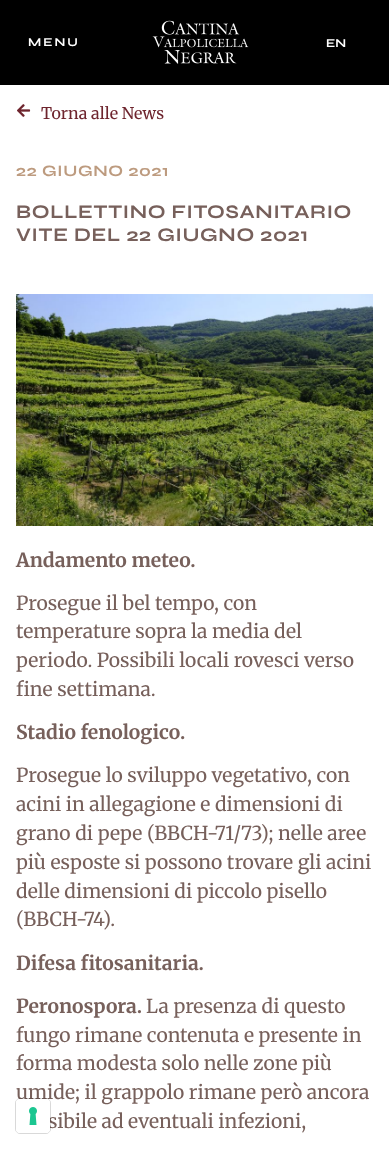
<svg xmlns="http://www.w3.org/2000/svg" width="389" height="1149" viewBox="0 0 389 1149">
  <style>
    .t1 { font: bold 12px Syne; letter-spacing: 2px; fill: #fff; }
    .t2 { font: bold 12px Syne; fill: #fff; }
    .t3 { font: 16px Merriweather; fill: #6e252e; }
    .t4 { font: bold 16px Syne; letter-spacing: 0.7px; fill: #bd9b7f; }
    .t5 { font: bold 19.25px Syne; letter-spacing: 0.7px; fill: #77605b; }
    .t6 { font: bold 19.25px Merriweather; fill: #77605b; }
    .t7 { font: 19.25px Merriweather; fill: #77605b; }
  </style>
  <rect width="100%" height="100%" fill="#fff"/>
  <rect x="0" y="0" width="389" height="85" fill="#000"/>
  <text x="28" y="46" class="t1">MENU</text>
  <image x="152" y="20" width="97" height="44" href="images/1.png"/>
  <text x="326" y="47" class="t2">EN</text>
  <image x="17" y="104" width="14" height="13" href="images/2.png"/>
  <text x="41" y="119" class="t3">Torna alle News</text>
  <text x="16" y="176" class="t4">22 GIUGNO 2021</text>
  <text x="16" y="218" class="t5">BOLLETTINO FITOSANITARIO</text>
  <text x="16" y="241" class="t5">VITE DEL 22 GIUGNO 2021</text>
  <image x="16" y="294" width="357" height="232" href="images/3.png"/>
  <text x="16" y="567" class="t6">Andamento meteo.</text>
  <text x="16" y="610" class="t7">Prosegue il bel tempo, con</text>
  <text x="16" y="638" class="t7">temperature sopra la media del</text>
  <text x="16" y="667" class="t7">periodo. Possibili locali rovesci verso</text>
  <text x="16" y="696" class="t7">fine settimana.</text>
  <text x="16" y="739" class="t6">Stadio fenologico.</text>
  <text x="16" y="782" class="t7">Prosegue lo sviluppo vegetativo, con</text>
  <text x="16" y="811" class="t7">acini in allegagione e dimensioni di</text>
  <text x="16" y="840" class="t7">grano di pepe (BBCH-71/73); nelle aree</text>
  <text x="16" y="869" class="t7">più esposte si possono trovare gli acini</text>
  <text x="16" y="898" class="t7">delle dimensioni di piccolo pisello</text>
  <text x="16" y="926" class="t7">(BBCH-74).</text>
  <text x="16" y="970" class="t6">Difesa fitosanitaria.</text>
  <text x="16" y="1013" class="t6">Peronospora.</text>
  <text x="146" y="1013" class="t7">La presenza di questo</text>
  <text x="16" y="1042" class="t7">fungo rimane contenuta e presente in</text>
  <text x="16" y="1070" class="t7">forma modesta solo nelle zone più</text>
  <text x="16" y="1099" class="t7">umide; il grappolo rimane però ancora</text>
  <text x="48" y="1128" class="t7">sibile ad eventuali infezioni,</text>
  <rect x="15.5" y="1098.5" width="35" height="35" rx="4.5" fill="none" stroke="#00000026"/>
  <rect x="16" y="1099" width="34" height="34" rx="4" fill="#fff"/>
  <image x="29" y="1107" width="8" height="18" href="images/4.png"/>
</svg>
